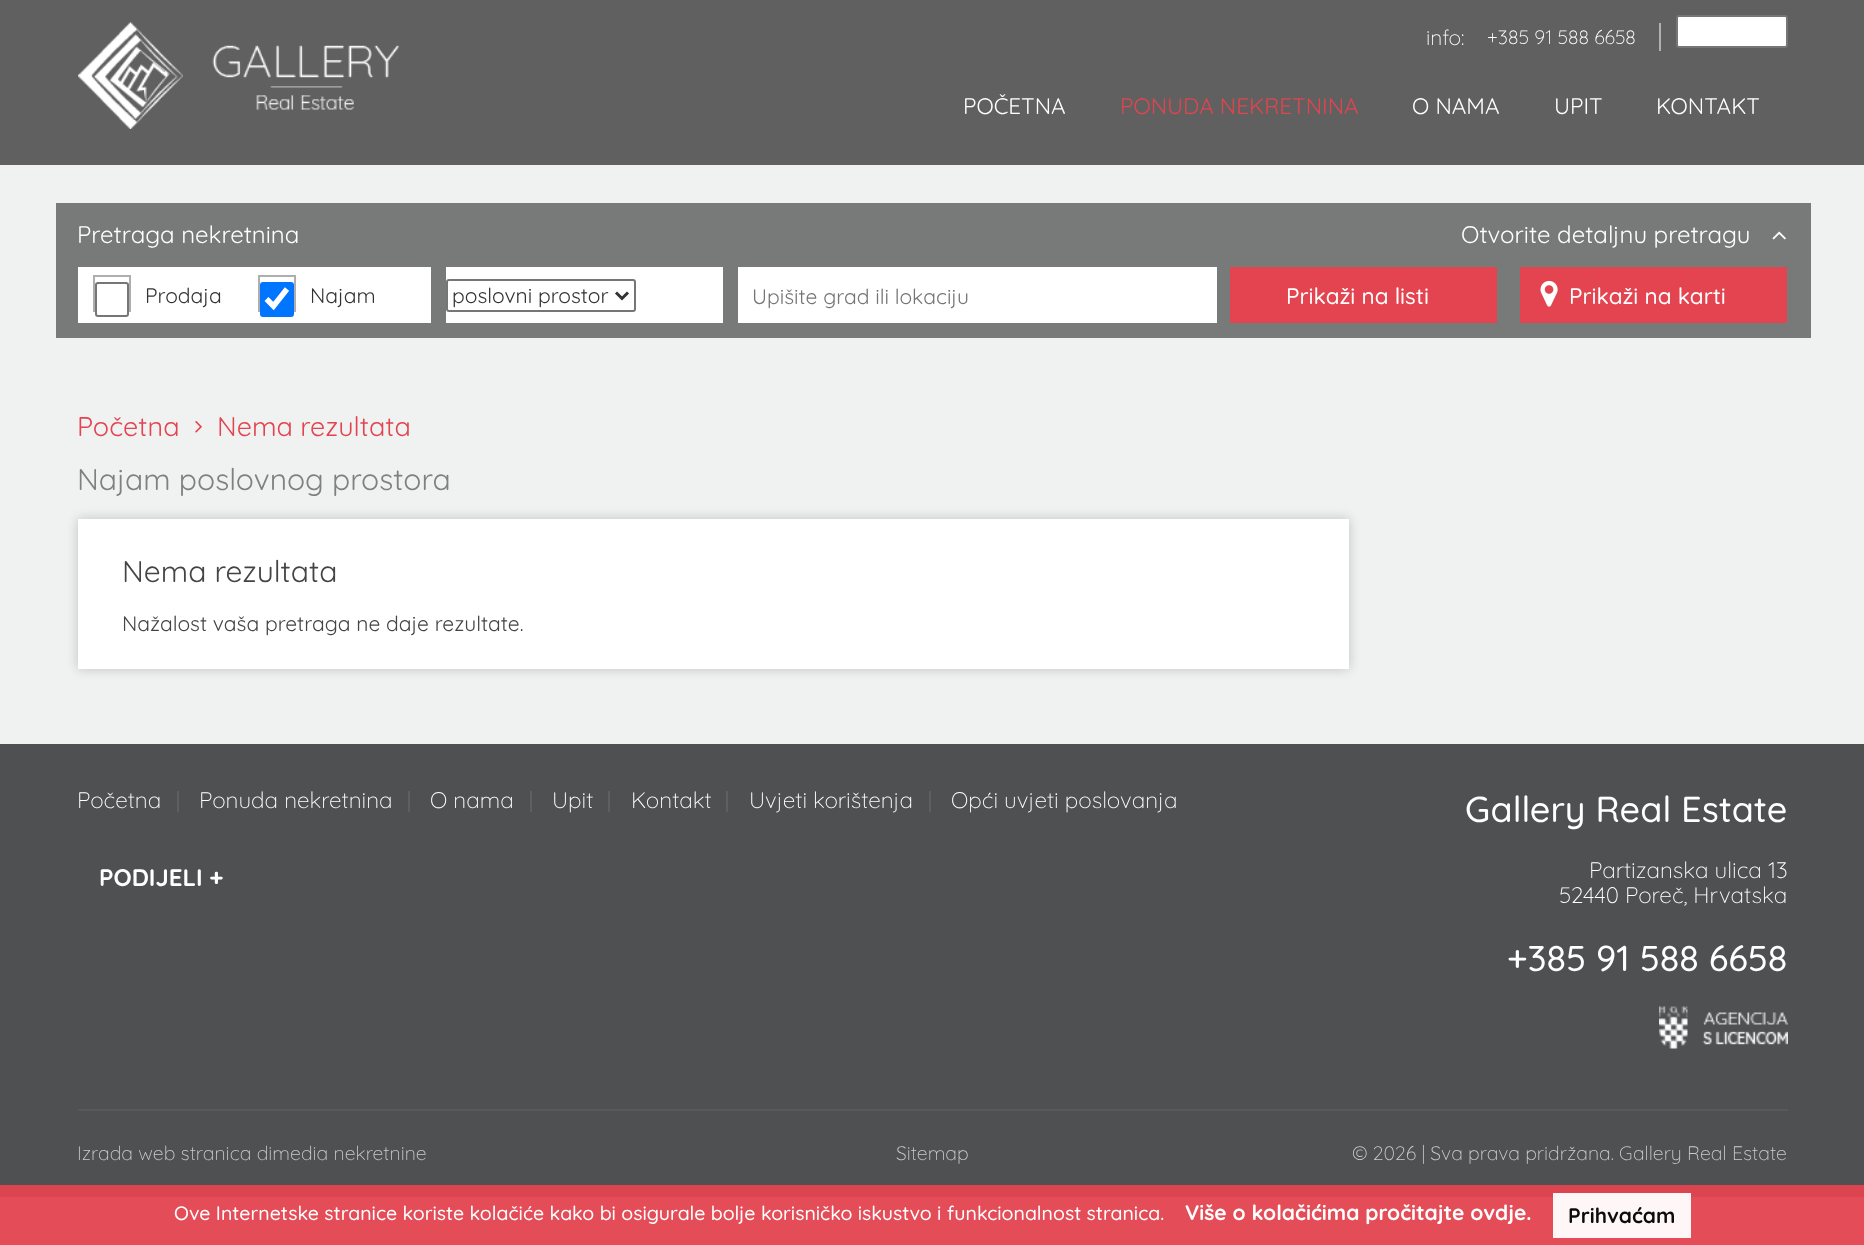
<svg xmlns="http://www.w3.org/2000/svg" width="1864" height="1245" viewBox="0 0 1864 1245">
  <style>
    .t1 { font: 300 21px Quicksand; fill: #fff; }
    .t2 { font: 300 19.5px Quicksand; fill: #fff; }
    .t3 { font: 22.5px Quicksand; fill: #fff; }
    .t4 { font: 22.5px Quicksand; fill: #e3444f; }
    .t5 { font: 24px Quicksand; fill: #fff; }
    .t6 { font: 21px Quicksand; fill: #333; }
    .t7 { font: 21px Quicksand; fill: #757575; }
    .t8 { font: 500 22.5px Quicksand; fill: #fff; }
    .t9 { font: 27px Quicksand; fill: #e3444f; }
    .t10 { font: 30px Quicksand; fill: #808080; }
    .t11 { font: 30px Quicksand; fill: #444; }
    .t12 { font: 21px Quicksand; fill: #444; }
    .t13 { font: 300 22.5px Quicksand; fill: #fff; }
    .t14 { font: bold 24px Quicksand; fill: #fff; }
    .t15 { font: 500 36px Quicksand; fill: #fff; }
    .t16 { font: 300 19.5px Quicksand; fill: #ccc; }
    .t17 { font: 500 19.5px Quicksand; fill: #fff; }
    .t18 { font: bold 21px Quicksand; fill: #fff; }
    .t19 { font: bold 21px Quicksand; fill: #0c0c0c; }
  </style>
  <rect width="100%" height="100%" fill="#f0f2f2"/>
  <rect x="0" y="1197" width="1864" height="48" fill="#e44d57"/>
  <rect x="1553" y="1197" width="138" height="41" fill="#fef6f7"/>
  <rect x="0" y="0" width="1864" height="165" fill="#606060"/>
  <text x="1426" y="45" class="t1">info:</text>
  <rect x="1659" y="23" width="2" height="28" fill="#b0b0b0"/>
  <text x="1487" y="44" class="t2">+385 91 588 6658</text>
  <rect x="1677" y="16" width="110" height="31" rx="2" fill="#fff" stroke="#767676" stroke-width="2"/>
  <image x="78" y="22" width="321" height="107" href="images/1.png"/>
  <text x="963" y="114" class="t3">POČETNA</text>
  <text x="1120" y="114" class="t4">PONUDA NEKRETNINA</text>
  <text x="1412" y="114" class="t3">O NAMA</text>
  <text x="1554" y="114" class="t3">UPIT</text>
  <text x="1656" y="114" class="t3">KONTAKT</text>
  <rect x="56" y="203" width="1755" height="135" fill="#787979"/>
  <text x="77" y="243" class="t5">Pretraga nekretnina</text>
  <text x="1461" y="243" class="t5">Otvorite detaljnu pretragu</text>
  <image x="1772" y="231" width="14" height="9" href="images/2.png"/>
  <rect x="78" y="267" width="353" height="56" fill="#fff"/>
  <rect x="94" y="276" width="36" height="35" fill="none" stroke="#aeaeae" stroke-width="2"/>
  <rect x="96" y="283" width="32" height="33" rx="2" fill="#fff" stroke="#767676" stroke-width="2"/>
  <text x="145" y="303" class="t6">Prodaja</text>
  <rect x="259" y="276" width="36" height="35" fill="none" stroke="#aeaeae" stroke-width="2"/>
  <rect x="260" y="282" width="34" height="35" rx="3" fill="#0075ff"/>
  <path d="M266.5 299L273.5 306L287 289" fill="none" stroke="#fff" stroke-width="5.5"/>
  <text x="310" y="303" class="t6">Najam</text>
  <rect x="446" y="267" width="277" height="56" fill="#fff"/>
  <rect x="447" y="280" width="188" height="31" rx="2" fill="none" stroke="#767676" stroke-width="2"/>
  <path d="M616 292.5L622 298.5L628 292.5" fill="none" stroke="#333" stroke-width="3"/>
  <text x="452" y="303" class="t6">poslovni prostor</text>
  <rect x="738" y="267" width="479" height="56" fill="#fff"/>
  <text x="752" y="304" class="t7">Upišite grad ili lokaciju</text>
  <rect x="1230" y="267" width="267" height="56" fill="#e3444f"/>
  <text x="1286" y="304" class="t8">Prikaži na listi</text>
  <rect x="1520" y="267" width="267" height="56" fill="#e3444f"/>
  <image x="1540" y="280" width="18" height="27" href="images/3.png"/>
  <text x="1569" y="304" class="t8">Prikaži na karti</text>
  <text x="77" y="436" class="t9">Početna</text>
  <image x="195" y="421" width="7" height="12" href="images/4.png"/>
  <text x="217" y="436" class="t9">Nema rezultata</text>
  <text x="77" y="490" class="t10">Najam poslovnog prostora</text>
  <rect x="78" y="519" width="1271" height="150" fill="#00000033" filter="blur(6px)"/>
  <rect x="78" y="519" width="1271" height="150" fill="#fff"/>
  <text x="122" y="582" class="t11">Nema rezultata</text>
  <text x="122" y="631" class="t12">Nažalost vaša pretraga ne daje rezultate.</text>
  <rect x="0" y="744" width="1864" height="441" fill="#4e5052"/>
  <rect x="0" y="1185" width="1864" height="12" fill="#dc454f"/>
  <rect x="1553" y="1193" width="138" height="4" fill="#fdf6f6"/>
  <rect x="177" y="791" width="2" height="21" fill="#5e5f5f"/>
  <text x="77" y="808" class="t13">Početna</text>
  <rect x="408" y="791" width="2" height="21" fill="#5e5f5f"/>
  <text x="199" y="808" class="t13">Ponuda nekretnina</text>
  <rect x="530" y="791" width="2" height="21" fill="#5e5f5f"/>
  <text x="430" y="808" class="t13">O nama</text>
  <rect x="608" y="791" width="2" height="21" fill="#5e5f5f"/>
  <text x="552" y="808" class="t13">Upit</text>
  <rect x="726" y="791" width="2" height="21" fill="#5e5f5f"/>
  <text x="631" y="808" class="t13">Kontakt</text>
  <rect x="929" y="791" width="2" height="21" fill="#5e5f5f"/>
  <text x="749" y="808" class="t13">Uvjeti korištenja</text>
  <text x="951" y="808" class="t13">Opći uvjeti poslovanja</text>
  <text x="99" y="886" class="t14">PODIJELI +</text>
  <text x="1465" y="822" class="t15">Gallery Real Estate</text>
  <text x="1589" y="878" class="t13">Partizanska ulica 13</text>
  <text x="1559" y="903" class="t13">52440 Poreč, Hrvatska</text>
  <text x="1507" y="971" class="t15">+385 91 588 6658</text>
  <image x="1659" y="1006" width="129" height="43" href="images/5.png"/>
  <rect x="78" y="1109" width="1710" height="2" fill="#57595b"/>
  <text x="77" y="1160" class="t16">Izrada web stranica dimedia nekretnine</text>
  <text x="896" y="1160" class="t16">Sitemap</text>
  <text x="1352" y="1160" class="t16">© 2026 | Sva prava pridržana. Gallery Real Estate</text>
  <text x="174" y="1220" class="t17">Ove Internetske stranice koriste kolačiće kako bi osigurale bolje korisničko iskustvo i funkcionalnost stranica.</text>
  <text x="1185" y="1220" class="t18">Više o kolačićima pročitajte ovdje.</text>
  <text x="1568" y="1223" class="t19">Prihvaćam</text>
</svg>
